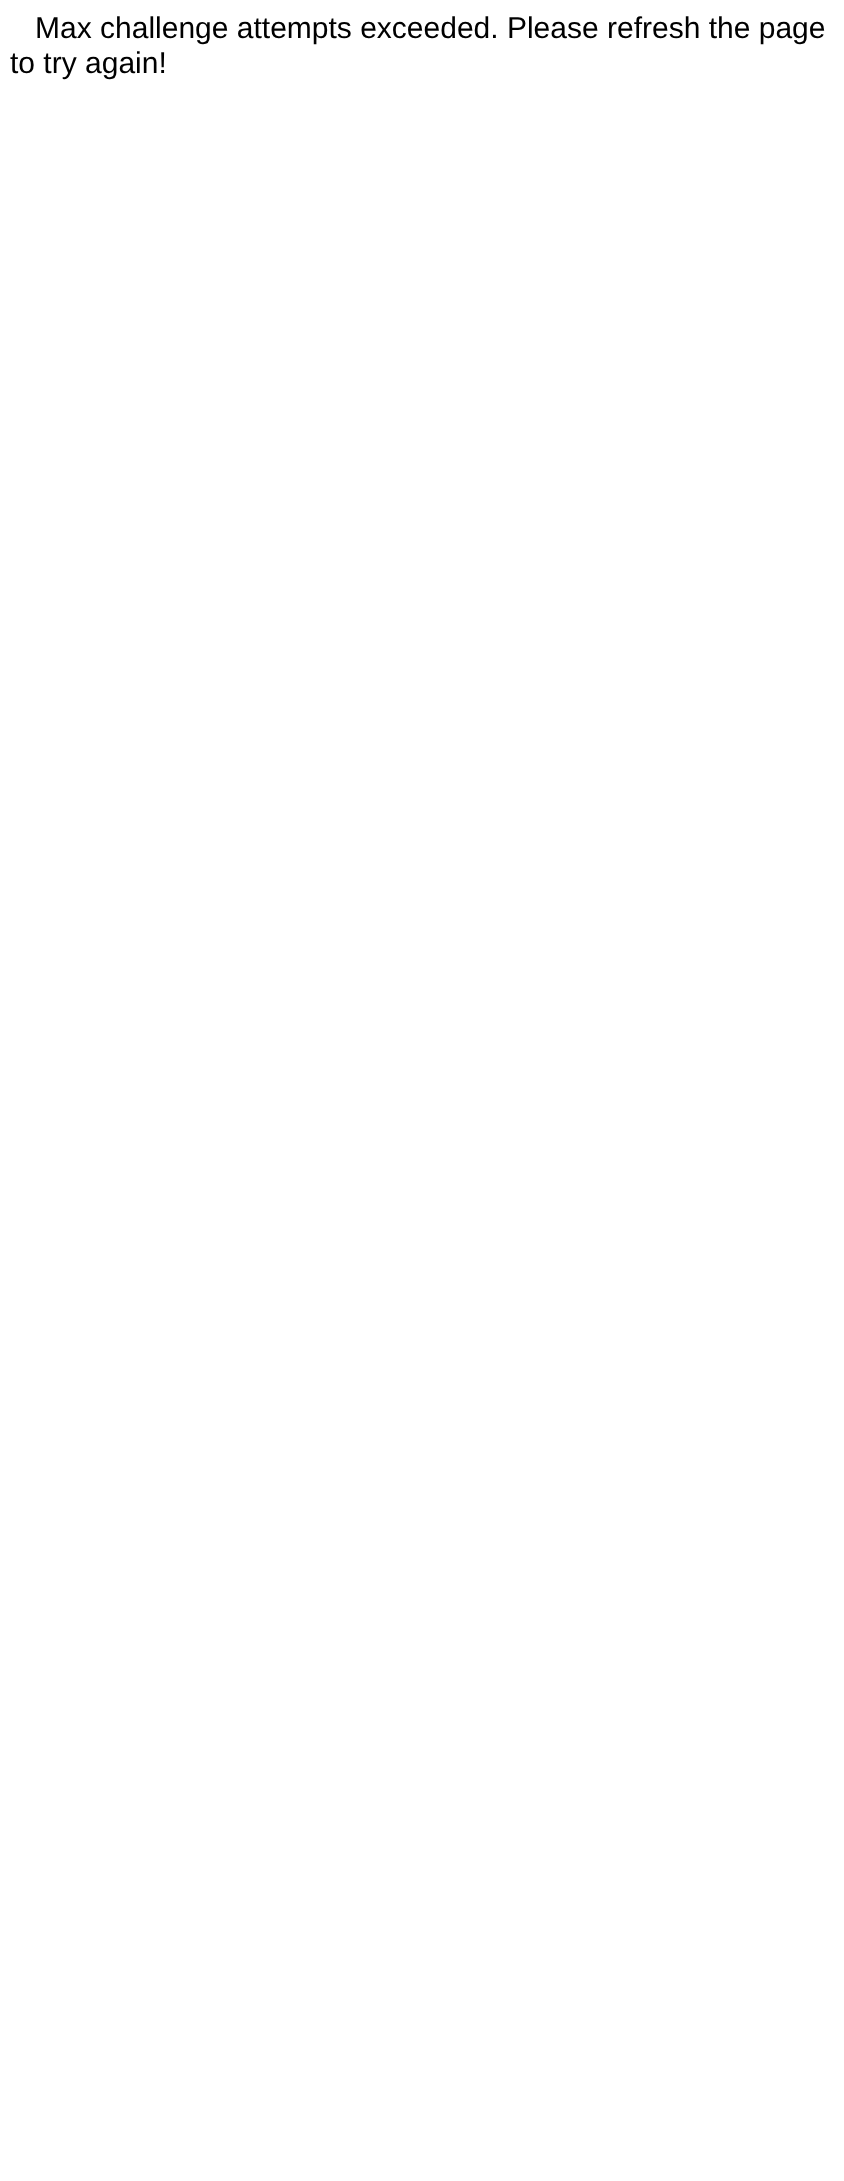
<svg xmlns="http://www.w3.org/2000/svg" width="844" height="2181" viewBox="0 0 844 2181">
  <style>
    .t1 { font: 30px Liberation Sans; fill: #000; }
  </style>
  <rect width="100%" height="100%" fill="#fff"/>
  <text x="35" y="38" class="t1">Max challenge attempts exceeded. Please refresh the page</text>
  <text x="10" y="73" class="t1">to try again!</text>
</svg>
